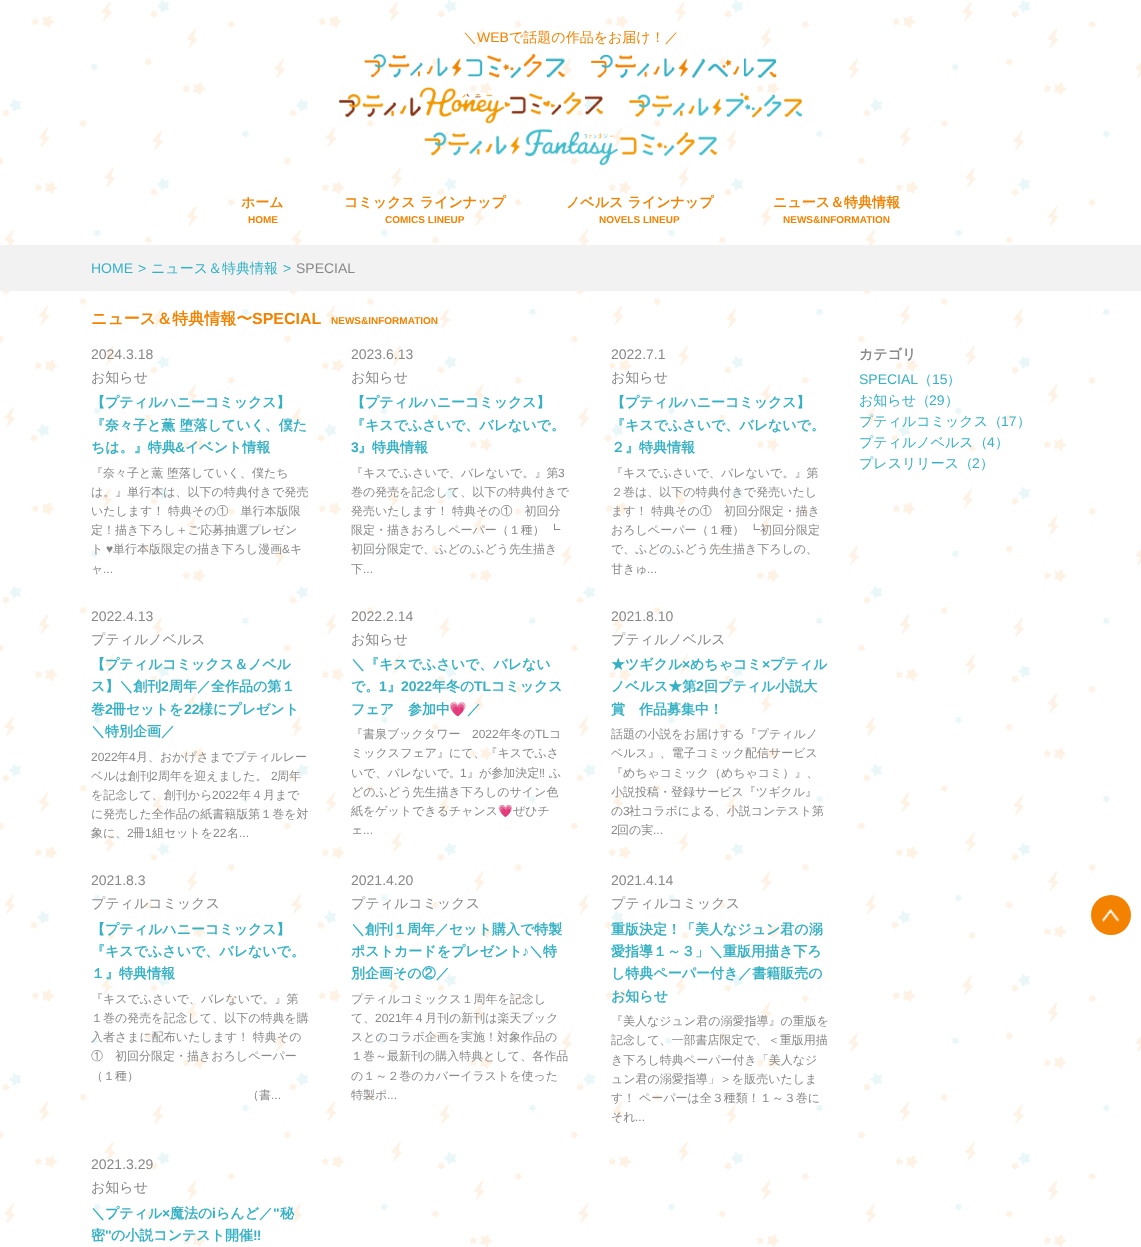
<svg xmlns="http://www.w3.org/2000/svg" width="1141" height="1247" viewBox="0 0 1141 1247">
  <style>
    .t1 { font: 500 14px WenQuanYi Zen Hei; fill: #f38200; }
    .t2 { font: 14px Liberation Sans; fill: #f38200; }
    .t3 { font: bold 14px WenQuanYi Zen Hei; fill: #f38200; }
    .t4 { font: bold 10px Liberation Sans; fill: #f38200; }
    .t5 { font: 14px Liberation Sans; fill: #35b1c5; }
    .t6 { font: 500 14px WenQuanYi Zen Hei; fill: #35b1c5; }
    .t7 { font: 14px Liberation Sans; fill: #888; }
    .t8 { font: bold 16px WenQuanYi Zen Hei; fill: #f38200; }
    .t9 { font: bold 16px Liberation Sans; fill: #f38200; }
    .t10 { font: 500 14px WenQuanYi Zen Hei; fill: #888; }
    .t11 { font: bold 14px WenQuanYi Zen Hei; fill: #35b1c5; }
    .t12 { font: bold 14px Liberation Sans; fill: #35b1c5; }
    .t13 { font: 500 12px WenQuanYi Zen Hei; fill: #888; }
    .t14 { font: 12px Liberation Sans; fill: #888; }
    .t15 { font: bold 14px Noto Color Emoji; fill: #35b1c5; }
    .t16 { font: 12px Noto Color Emoji; fill: #888; }
    .t17 { font: bold 14px WenQuanYi Zen Hei; fill: #888; }
  </style>
  <rect width="100%" height="100%" fill="#fff"/>
  <image x="0" y="0" width="1141" height="1247" href="images/1.png"/>
  <text x="463" y="42" class="t1">＼</text>
  <text x="477" y="42" class="t2">WEB</text>
  <text x="509" y="42" class="t1">で話題の作品をお届け！／</text>
  <image x="339" y="54" width="463" height="111" href="images/2.png"/>
  <text x="241" y="207" class="t3">ホーム</text>
  <text x="248" y="223" class="t4">HOME</text>
  <text x="344" y="207" class="t3">コミックス ラインナップ</text>
  <text x="385" y="223" class="t4">COMICS LINEUP</text>
  <text x="566" y="207" class="t3">ノベルス ラインナップ</text>
  <text x="599" y="223" class="t4">NOVELS LINEUP</text>
  <text x="773" y="207" class="t3">ニュース＆特典情報</text>
  <text x="783" y="223" class="t4">NEWS&amp;INFORMATION</text>
  <rect x="0" y="245" width="1141" height="46" fill="#f2f2f2"/>
  <text x="91" y="273" class="t5">HOME</text>
  <text x="138" y="273" class="t5">&gt;</text>
  <text x="151" y="273" class="t6">ニュース＆特典情報</text>
  <text x="283" y="273" class="t5">&gt;</text>
  <text x="296" y="273" class="t7">SPECIAL</text>
  <text x="91" y="324" class="t8">ニュース＆特典情報〜</text>
  <text x="252" y="324" class="t9">SPECIAL</text>
  <text x="331" y="324" class="t4">NEWS&amp;INFORMATION</text>
  <text x="91" y="359" class="t7">2024.3.18</text>
  <text x="91" y="382" class="t10">お知らせ</text>
  <text x="91" y="407" class="t11">【プティルハニーコミックス】</text>
  <text x="91" y="430" class="t11">『奈々子と薫 堕落していく、僕た</text>
  <text x="91" y="452" class="t11">ちは。』特典</text>
  <text x="175" y="452" class="t12">&amp;</text>
  <text x="185" y="452" class="t11">イベント情報</text>
  <text x="91" y="477" class="t13">『奈々子と薫 堕落していく、僕たち</text>
  <text x="91" y="496" class="t13">は。』単行本は、以下の特典付きで発売</text>
  <text x="91" y="515" class="t13">いたします！ 特典その①　単行本版限</text>
  <text x="91" y="534" class="t13">定！描き下ろし＋ご応募抽選プレゼン</text>
  <text x="91" y="553" class="t13">ト</text>
  <text x="106" y="553" class="t14">♥</text>
  <text x="113" y="553" class="t13">単行本版限定の描き下ろし漫画</text>
  <text x="282" y="553" class="t14">&amp;</text>
  <text x="290" y="553" class="t13">キ</text>
  <text x="91" y="573" class="t13">ャ</text>
  <text x="103" y="573" class="t14">...</text>
  <text x="351" y="359" class="t7">2023.6.13</text>
  <text x="351" y="382" class="t10">お知らせ</text>
  <text x="351" y="407" class="t11">【プティルハニーコミックス】</text>
  <text x="351" y="430" class="t11">『キスでふさいで、バレないで。</text>
  <text x="351" y="452" class="t12">3</text>
  <text x="358" y="452" class="t11">』特典情報</text>
  <text x="351" y="477" class="t13">『キスでふさいで、バレないで。』第</text>
  <text x="558" y="477" class="t14">3</text>
  <text x="351" y="496" class="t13">巻の発売を記念して、以下の特典付きで</text>
  <text x="351" y="515" class="t13">発売いたします！ 特典その①　初回分</text>
  <text x="351" y="534" class="t13">限定・描きおろしペーパー（１種） ┗</text>
  <text x="351" y="553" class="t13">初回分限定で、ふどのふどう先生描き</text>
  <text x="351" y="573" class="t13">下</text>
  <text x="363" y="573" class="t14">...</text>
  <text x="611" y="359" class="t7">2022.7.1</text>
  <text x="611" y="382" class="t10">お知らせ</text>
  <text x="611" y="407" class="t11">【プティルハニーコミックス】</text>
  <text x="611" y="430" class="t11">『キスでふさいで、バレないで。</text>
  <text x="611" y="452" class="t11">２』特典情報</text>
  <text x="611" y="477" class="t13">『キスでふさいで、バレないで。』第</text>
  <text x="611" y="496" class="t13">２巻は、以下の特典付きで発売いたし</text>
  <text x="611" y="515" class="t13">ます！ 特典その①　初回分限定・描き</text>
  <text x="611" y="534" class="t13">おろしペーパー（１種） ┗初回分限定</text>
  <text x="611" y="553" class="t13">で、ふどのふどう先生描き下ろしの、</text>
  <text x="611" y="573" class="t13">甘きゅ</text>
  <text x="647" y="573" class="t14">...</text>
  <text x="91" y="621" class="t7">2022.4.13</text>
  <text x="91" y="644" class="t10">プティルノベルス</text>
  <text x="91" y="669" class="t11">【プティルコミックス＆ノベル</text>
  <text x="91" y="691" class="t11">ス】＼創刊</text>
  <text x="161" y="691" class="t12">2</text>
  <text x="169" y="691" class="t11">周年／全作品の第１</text>
  <text x="91" y="714" class="t11">巻</text>
  <text x="105" y="714" class="t12">2</text>
  <text x="112" y="714" class="t11">冊セットを</text>
  <text x="184" y="714" class="t12">22</text>
  <text x="199" y="714" class="t11">様にプレゼント</text>
  <text x="91" y="736" class="t11">＼特別企画／</text>
  <text x="91" y="761" class="t14">2022</text>
  <text x="117" y="761" class="t13">年</text>
  <text x="129" y="761" class="t14">4</text>
  <text x="136" y="761" class="t13">月、おかげさまでプティルレー</text>
  <text x="91" y="780" class="t13">ベルは創刊</text>
  <text x="151" y="780" class="t14">2</text>
  <text x="158" y="780" class="t13">周年を迎えました。</text>
  <text x="271" y="780" class="t14">2</text>
  <text x="277" y="780" class="t13">周年</text>
  <text x="91" y="799" class="t13">を記念して、創刊から</text>
  <text x="212" y="799" class="t14">2022</text>
  <text x="239" y="799" class="t13">年４月まで</text>
  <text x="91" y="818" class="t13">に発売した全作品の紙書籍版第１巻を対</text>
  <text x="91" y="837" class="t13">象に、</text>
  <text x="127" y="837" class="t14">2</text>
  <text x="133" y="837" class="t13">冊</text>
  <text x="145" y="837" class="t14">1</text>
  <text x="152" y="837" class="t13">組セットを</text>
  <text x="213" y="837" class="t14">22</text>
  <text x="227" y="837" class="t13">名</text>
  <text x="239" y="837" class="t14">...</text>
  <text x="351" y="621" class="t7">2022.2.14</text>
  <text x="351" y="644" class="t10">お知らせ</text>
  <text x="351" y="669" class="t11">＼『キスでふさいで、バレない</text>
  <text x="351" y="691" class="t11">で。</text>
  <text x="379" y="691" class="t12">1</text>
  <text x="387" y="691" class="t11">』</text>
  <text x="401" y="691" class="t12">2022</text>
  <text x="432" y="691" class="t11">年冬の</text>
  <text x="474" y="691" class="t12">TL</text>
  <text x="491" y="691" class="t11">コミックス</text>
  <text x="351" y="714" class="t11">フェア　参加中</text>
  <text x="449" y="714" class="t15">💗</text>
  <text x="467" y="714" class="t11">／</text>
  <text x="351" y="738" class="t13">『書泉ブックタワー</text>
  <text x="472" y="738" class="t14">2022</text>
  <text x="499" y="738" class="t13">年冬の</text>
  <text x="535" y="738" class="t14">TL</text>
  <text x="549" y="738" class="t13">コ</text>
  <text x="351" y="757" class="t13">ミックスフェア』にて、『キスでふさ</text>
  <text x="351" y="777" class="t13">いで、バレないで。</text>
  <text x="460" y="777" class="t14">1</text>
  <text x="467" y="777" class="t13">』が参加決定</text>
  <text x="539" y="777" class="t14">‼</text>
  <text x="549" y="777" class="t13">ふ</text>
  <text x="351" y="796" class="t13">どのふどう先生描き下ろしのサイン色</text>
  <text x="351" y="815" class="t13">紙をゲットできるチャンス</text>
  <text x="498" y="815" class="t16">💗</text>
  <text x="513" y="815" class="t13">ぜひチ</text>
  <text x="351" y="834" class="t13">ェ</text>
  <text x="363" y="834" class="t14">...</text>
  <text x="611" y="621" class="t7">2021.8.10</text>
  <text x="611" y="644" class="t10">プティルノベルス</text>
  <text x="611" y="669" class="t11">★ツギクル</text>
  <text x="682" y="669" class="t12">×</text>
  <text x="690" y="669" class="t11">めちゃコミ</text>
  <text x="762" y="669" class="t12">×</text>
  <text x="770" y="669" class="t11">プティル</text>
  <text x="611" y="691" class="t11">ノベルス★第</text>
  <text x="696" y="691" class="t12">2</text>
  <text x="704" y="691" class="t11">回プティル小説大</text>
  <text x="611" y="714" class="t11">賞　作品募集中！</text>
  <text x="611" y="738" class="t13">話題の小説をお届けする『プティルノ</text>
  <text x="611" y="757" class="t13">ベルス』、電子コミック配信サービス</text>
  <text x="611" y="777" class="t13">『めちゃコミック（めちゃコミ）』、</text>
  <text x="611" y="796" class="t13">小説投稿・登録サービス『ツギクル』</text>
  <text x="611" y="815" class="t13">の</text>
  <text x="623" y="815" class="t14">3</text>
  <text x="629" y="815" class="t13">社コラボによる、小説コンテスト第</text>
  <text x="611" y="834" class="t14">2</text>
  <text x="617" y="834" class="t13">回の実</text>
  <text x="653" y="834" class="t14">...</text>
  <text x="91" y="885" class="t7">2021.8.3</text>
  <text x="91" y="908" class="t10">プティルコミックス</text>
  <text x="91" y="934" class="t11">【プティルハニーコミックス】</text>
  <text x="91" y="956" class="t11">『キスでふさいで、バレないで。</text>
  <text x="91" y="978" class="t11">１』特典情報</text>
  <text x="91" y="1003" class="t13">『キスでふさいで、バレないで。』第</text>
  <text x="91" y="1022" class="t13">１巻の発売を記念して、以下の特典を購</text>
  <text x="91" y="1041" class="t13">入者さまに配布いたします！ 特典その</text>
  <text x="91" y="1060" class="t13">①　初回分限定・描きおろしペーパー</text>
  <text x="91" y="1080" class="t13">（１種）</text>
  <text x="247" y="1099" class="t13">（書</text>
  <text x="271" y="1099" class="t14">...</text>
  <text x="351" y="885" class="t7">2021.4.20</text>
  <text x="351" y="908" class="t10">プティルコミックス</text>
  <text x="351" y="934" class="t11">＼創刊１周年／セット購入で特製</text>
  <text x="351" y="956" class="t11">ポストカードをプレゼント</text>
  <text x="522" y="956" class="t12">♪</text>
  <text x="529" y="956" class="t11">＼特</text>
  <text x="351" y="978" class="t11">別企画その②／</text>
  <text x="351" y="1003" class="t13">プティルコミックス１周年を記念し</text>
  <text x="351" y="1022" class="t13">て、</text>
  <text x="375" y="1022" class="t14">2021</text>
  <text x="401" y="1022" class="t13">年４月刊の新刊は楽天ブック</text>
  <text x="351" y="1041" class="t13">スとのコラボ企画を実施！対象作品の</text>
  <text x="351" y="1060" class="t13">１巻～最新刊の購入特典として、各作品</text>
  <text x="351" y="1080" class="t13">の１～２巻のカバーイラストを使った</text>
  <text x="351" y="1099" class="t13">特製ポ</text>
  <text x="387" y="1099" class="t14">...</text>
  <text x="611" y="885" class="t7">2021.4.14</text>
  <text x="611" y="908" class="t10">プティルコミックス</text>
  <text x="611" y="934" class="t11">重版決定！「美人なジュン君の溺</text>
  <text x="611" y="956" class="t11">愛指導１～３」＼重版用描き下ろ</text>
  <text x="611" y="978" class="t11">し特典ペーパー付き／書籍販売の</text>
  <text x="611" y="1001" class="t11">お知らせ</text>
  <text x="611" y="1025" class="t13">『美人なジュン君の溺愛指導』の重版を</text>
  <text x="611" y="1044" class="t13">記念して、一部書店限定で、＜重版用描</text>
  <text x="611" y="1064" class="t13">き下ろし特典ペーパー付き「美人なジ</text>
  <text x="611" y="1083" class="t13">ュン君の溺愛指導」＞を販売いたしま</text>
  <text x="611" y="1102" class="t13">す！ ペーパーは全３種類！１～３巻に</text>
  <text x="611" y="1121" class="t13">それ</text>
  <text x="635" y="1121" class="t14">...</text>
  <text x="91" y="1169" class="t7">2021.3.29</text>
  <text x="91" y="1192" class="t10">お知らせ</text>
  <text x="91" y="1218" class="t11">＼プティル</text>
  <text x="162" y="1218" class="t12">×</text>
  <text x="170" y="1218" class="t11">魔法の</text>
  <text x="212" y="1218" class="t12">i</text>
  <text x="216" y="1218" class="t11">らんど／</text>
  <text x="273" y="1218" class="t12">"</text>
  <text x="280" y="1218" class="t11">秘</text>
  <text x="91" y="1240" class="t11">密</text>
  <text x="105" y="1240" class="t12">"</text>
  <text x="111" y="1240" class="t11">の小説コンテスト開催</text>
  <text x="253" y="1240" class="t12">‼</text>
  <text x="859" y="359" class="t17">カテゴリ</text>
  <text x="859" y="384" class="t5">SPECIAL</text>
  <text x="918" y="384" class="t6">（</text>
  <text x="932" y="384" class="t5">15</text>
  <text x="947" y="384" class="t6">）</text>
  <text x="859" y="405" class="t6">お知らせ（</text>
  <text x="929" y="405" class="t5">29</text>
  <text x="945" y="405" class="t6">）</text>
  <text x="859" y="426" class="t6">プティルコミックス（</text>
  <text x="1001" y="426" class="t5">17</text>
  <text x="1017" y="426" class="t6">）</text>
  <text x="859" y="447" class="t6">プティルノベルス（</text>
  <text x="987" y="447" class="t5">4</text>
  <text x="995" y="447" class="t6">）</text>
  <text x="859" y="468" class="t6">プレスリリース（</text>
  <text x="972" y="468" class="t5">2</text>
  <text x="980" y="468" class="t6">）</text>
  <circle cx="1111" cy="915" r="20" fill="#f38200"/>
  <image x="1102" y="909" width="18" height="13" href="images/3.png"/>
</svg>
